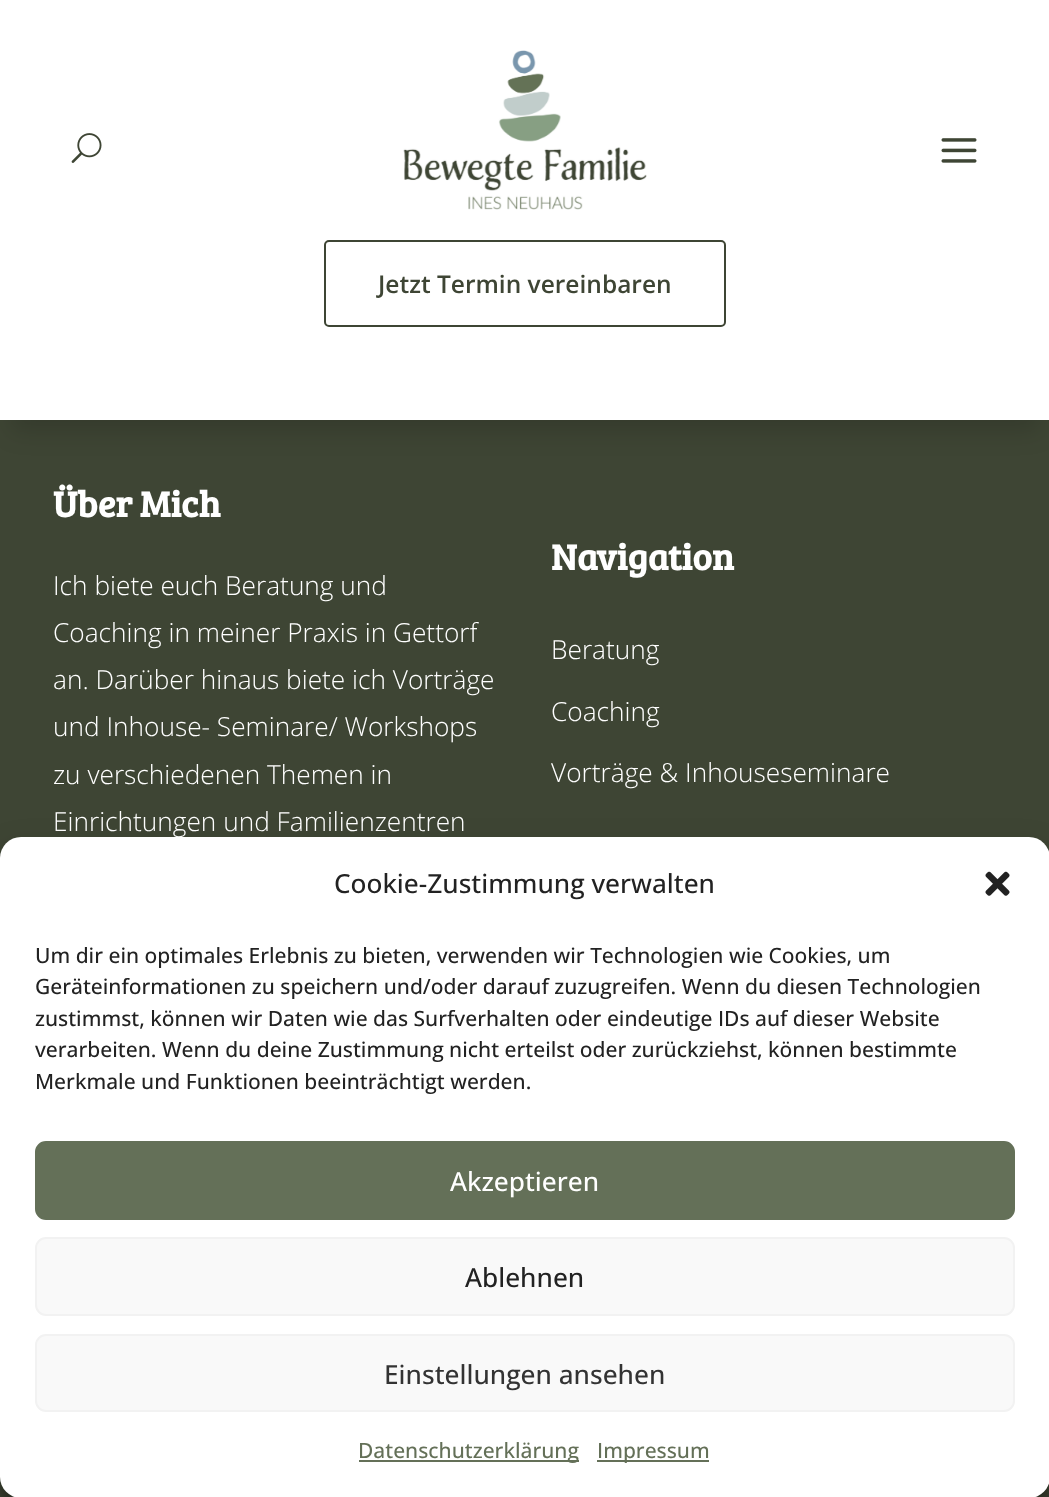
<svg xmlns="http://www.w3.org/2000/svg" width="1049" height="1497" viewBox="0 0 1049 1497">
  <style>
    .t1 { font: 600 24.5px Open Sans; fill: #3e4534; }
    .t2 { font: bold 36.75px Bree Serif; fill: #fff; }
    .t3 { font: 300 26.25px Open Sans; fill: #fff; }
    .t4 { font: 500 26.25px Open Sans; fill: #222; }
    .t5 { font: 500 21px Open Sans; fill: #222; }
    .t6 { font: 500 26.25px Open Sans; fill: #fff; }
    .t7 { font: 500 26.25px Open Sans; fill: #333; }
    .t8 { font: 500 21px Open Sans; fill: #647058; }
  </style>
  <rect width="100%" height="100%" fill="#3e4534"/>
  <rect x="11" y="32" width="1029" height="399" fill="#00000026" filter="blur(12px)"/>
  <rect x="0" y="0" width="1049" height="420" fill="#fff"/>
  <image x="403" y="50" width="244" height="160" href="images/1.png"/>
  <image x="71" y="133" width="31" height="30" href="images/2.png"/>
  <image x="941" y="138" width="36" height="25" href="images/3.png"/>
  <rect x="325" y="241" width="400" height="85" rx="4" fill="none" stroke="#3e4534" stroke-width="2"/>
  <text x="378" y="293" class="t1">Jetzt Termin vereinbaren</text>
  <text x="53" y="517" class="t2">Über Mich</text>
  <text x="53" y="595" class="t3">Ich biete euch Beratung und</text>
  <text x="53" y="642" class="t3">Coaching in meiner Praxis in Gettorf</text>
  <text x="53" y="689" class="t3">an. Darüber hinaus biete ich Vorträge</text>
  <text x="53" y="736" class="t3">und Inhouse- Seminare/ Workshops</text>
  <text x="53" y="784" class="t3">zu verschiedenen Themen in</text>
  <text x="53" y="831" class="t3">Einrichtungen und Familienzentren</text>
  <text x="551" y="570" class="t2">Navigation</text>
  <text x="551" y="659" class="t3">Beratung</text>
  <text x="551" y="721" class="t3">Coaching</text>
  <text x="551" y="782" class="t3">Vorträge &amp; Inhouseseminare</text>
  <rect x="0" y="847" width="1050" height="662" rx="21" fill="#0000003b" filter="blur(5px)"/>
  <rect x="0" y="854" width="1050" height="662" rx="21" fill="#00000030" filter="blur(17.5px)"/>
  <rect x="0" y="837" width="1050" height="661" rx="21" fill="#fff"/>
  <text x="334" y="893" class="t4">Cookie-Zustimmung verwalten</text>
  <image x="985" y="871" width="25" height="25" href="images/4.png"/>
  <text x="35" y="963" class="t5">Um dir ein optimales Erlebnis zu bieten, verwenden wir Technologien wie Cookies, um</text>
  <text x="35" y="994" class="t5">Geräteinformationen zu speichern und/oder darauf zuzugreifen. Wenn du diesen Technologien</text>
  <text x="35" y="1026" class="t5">zustimmst, können wir Daten wie das Surfverhalten oder eindeutige IDs auf dieser Website</text>
  <text x="35" y="1057" class="t5">verarbeiten. Wenn du deine Zustimmung nicht erteilst oder zurückziehst, können bestimmte</text>
  <text x="35" y="1089" class="t5">Merkmale und Funktionen beeinträchtigt werden.</text>
  <rect x="36" y="1142" width="978" height="77" rx="10" fill="#647058" stroke="#647058" stroke-width="2"/>
  <text x="450" y="1191" class="t6">Akzeptieren</text>
  <rect x="36" y="1238" width="978" height="77" rx="10" fill="#f9f9f9" stroke="#f2f2f2" stroke-width="2"/>
  <text x="465" y="1287" class="t4">Ablehnen</text>
  <rect x="36" y="1335" width="978" height="76" rx="10" fill="#f9f9f9" stroke="#f2f2f2" stroke-width="2"/>
  <text x="384" y="1384" class="t7">Einstellungen ansehen</text>
  <rect x="359" y="1460" width="220" height="2" fill="#647058"/>
  <text x="358" y="1458" class="t8">Datenschutzerklärung</text>
  <rect x="597" y="1460" width="112" height="2" fill="#647058"/>
  <text x="597" y="1458" class="t8">Impressum</text>
</svg>
